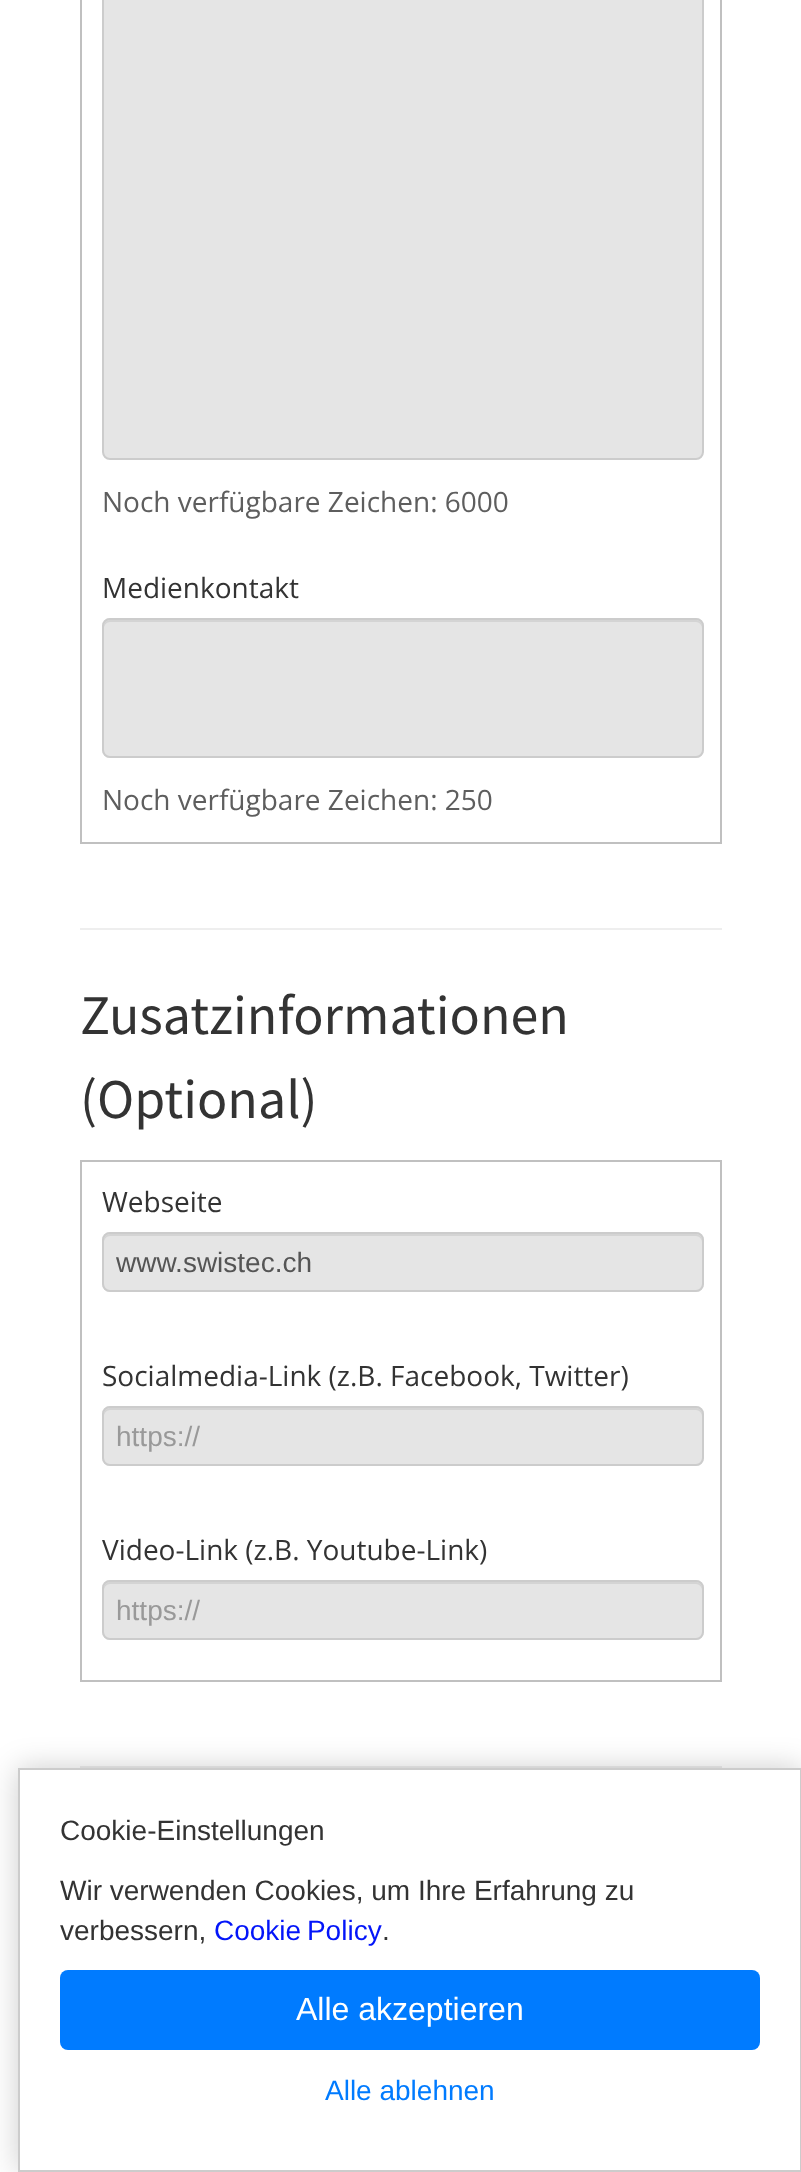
<svg xmlns="http://www.w3.org/2000/svg" width="801" height="2172" viewBox="0 0 801 2172">
  <style>
    .t1 { font: 28px Open Sans; fill: #5e5e5e; }
    .t2 { font: 28px Open Sans; fill: #333; }
    .t3 { font: 56px Source Sans Pro; fill: #333; }
    .t4 { font: 28px Liberation Sans; fill: #555; }
    .t5 { font: 28px Liberation Sans; fill: #999; }
    .t6 { font: 28px Liberation Sans; fill: #333; }
    .t7 { font: 28px Liberation Sans; fill: #0315f9; }
    .t8 { font: 32px Liberation Sans; fill: #fff; }
    .t9 { font: 28px Liberation Sans; fill: #007bff; }
  </style>
  <rect width="100%" height="100%" fill="#fff"/>
  <rect x="720" y="0" width="2" height="844" fill="#c0c0c0"/>
  <rect x="80" y="842" width="642" height="2" fill="#c0c0c0"/>
  <rect x="80" y="0" width="2" height="844" fill="#c0c0c0"/>
  <rect x="103" y="-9" width="600" height="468" rx="7" fill="#e5e5e5" stroke="#ccc" stroke-width="2"/>
  <text x="102" y="512" class="t1">Noch verfügbare Zeichen: 6000</text>
  <text x="102" y="598" class="t2">Medienkontakt</text>
  <rect x="102" y="618" width="602" height="140" rx="8" fill="#e5e5e5"/>
  <path d="M110 622H696C699 622 702 625 702 628V626C702 623 699 620 696 620H110C107 620 104 623 104 626V628C104 625 107 622 110 622Z" fill="#d4d4d4"/>
  <rect x="103" y="619" width="600" height="138" rx="7" fill="none" stroke="#ccc" stroke-width="2"/>
  <text x="102" y="810" class="t1">Noch verfügbare Zeichen: 250</text>
  <rect x="80" y="928" width="642" height="2" fill="#eee"/>
  <text x="80" y="1034" class="t3">Zusatzinformationen</text>
  <text x="80" y="1118" class="t3">(Optional)</text>
  <rect x="80" y="1160" width="642" height="2" fill="#c0c0c0"/>
  <rect x="720" y="1160" width="2" height="522" fill="#c0c0c0"/>
  <rect x="80" y="1680" width="642" height="2" fill="#c0c0c0"/>
  <rect x="80" y="1160" width="2" height="522" fill="#c0c0c0"/>
  <text x="102" y="1212" class="t2">Webseite</text>
  <rect x="102" y="1232" width="602" height="60" rx="8" fill="#e5e5e5"/>
  <path d="M110 1236H696C699 1236 702 1239 702 1242V1240C702 1237 699 1234 696 1234H110C107 1234 104 1237 104 1240V1242C104 1239 107 1236 110 1236Z" fill="#d4d4d4"/>
  <rect x="103" y="1233" width="600" height="58" rx="7" fill="none" stroke="#ccc" stroke-width="2"/>
  <text x="116" y="1272" class="t4">www.swistec.ch</text>
  <text x="102" y="1386" class="t2">Socialmedia-Link (z.B. Facebook, Twitter)</text>
  <rect x="102" y="1406" width="602" height="60" rx="8" fill="#e5e5e5"/>
  <path d="M110 1410H696C699 1410 702 1413 702 1416V1414C702 1411 699 1408 696 1408H110C107 1408 104 1411 104 1414V1416C104 1413 107 1410 110 1410Z" fill="#d4d4d4"/>
  <rect x="103" y="1407" width="600" height="58" rx="7" fill="none" stroke="#ccc" stroke-width="2"/>
  <text x="116" y="1446" class="t5">https://</text>
  <text x="102" y="1560" class="t2">Video-Link (z.B. Youtube-Link)</text>
  <rect x="102" y="1580" width="602" height="60" rx="8" fill="#e5e5e5"/>
  <path d="M110 1584H696C699 1584 702 1587 702 1590V1588C702 1585 699 1582 696 1582H110C107 1582 104 1585 104 1588V1590C104 1587 107 1584 110 1584Z" fill="#d4d4d4"/>
  <rect x="103" y="1581" width="600" height="58" rx="7" fill="none" stroke="#ccc" stroke-width="2"/>
  <text x="116" y="1620" class="t5">https://</text>
  <rect x="80" y="1766" width="642" height="2" fill="#eee"/>
  <rect x="18" y="1768" width="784" height="404" fill="#00000033" filter="blur(15px)"/>
  <rect x="19" y="1769" width="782" height="402" fill="#fff" stroke="#ccc" stroke-width="2"/>
  <text x="60" y="1840" class="t6">Cookie-Einstellungen</text>
  <text x="60" y="1900" class="t6">Wir verwenden Cookies, um Ihre Erfahrung zu</text>
  <text x="60" y="1940" class="t6">verbessern,</text>
  <text x="214" y="1940" word-spacing="-2" class="t7">Cookie Policy</text>
  <text x="382" y="1940" class="t6">.</text>
  <rect x="60" y="1970" width="700" height="80" rx="8" fill="#007bff"/>
  <text x="296" y="2020" class="t8">Alle akzeptieren</text>
  <text x="325" y="2100" class="t9">Alle ablehnen</text>
</svg>
